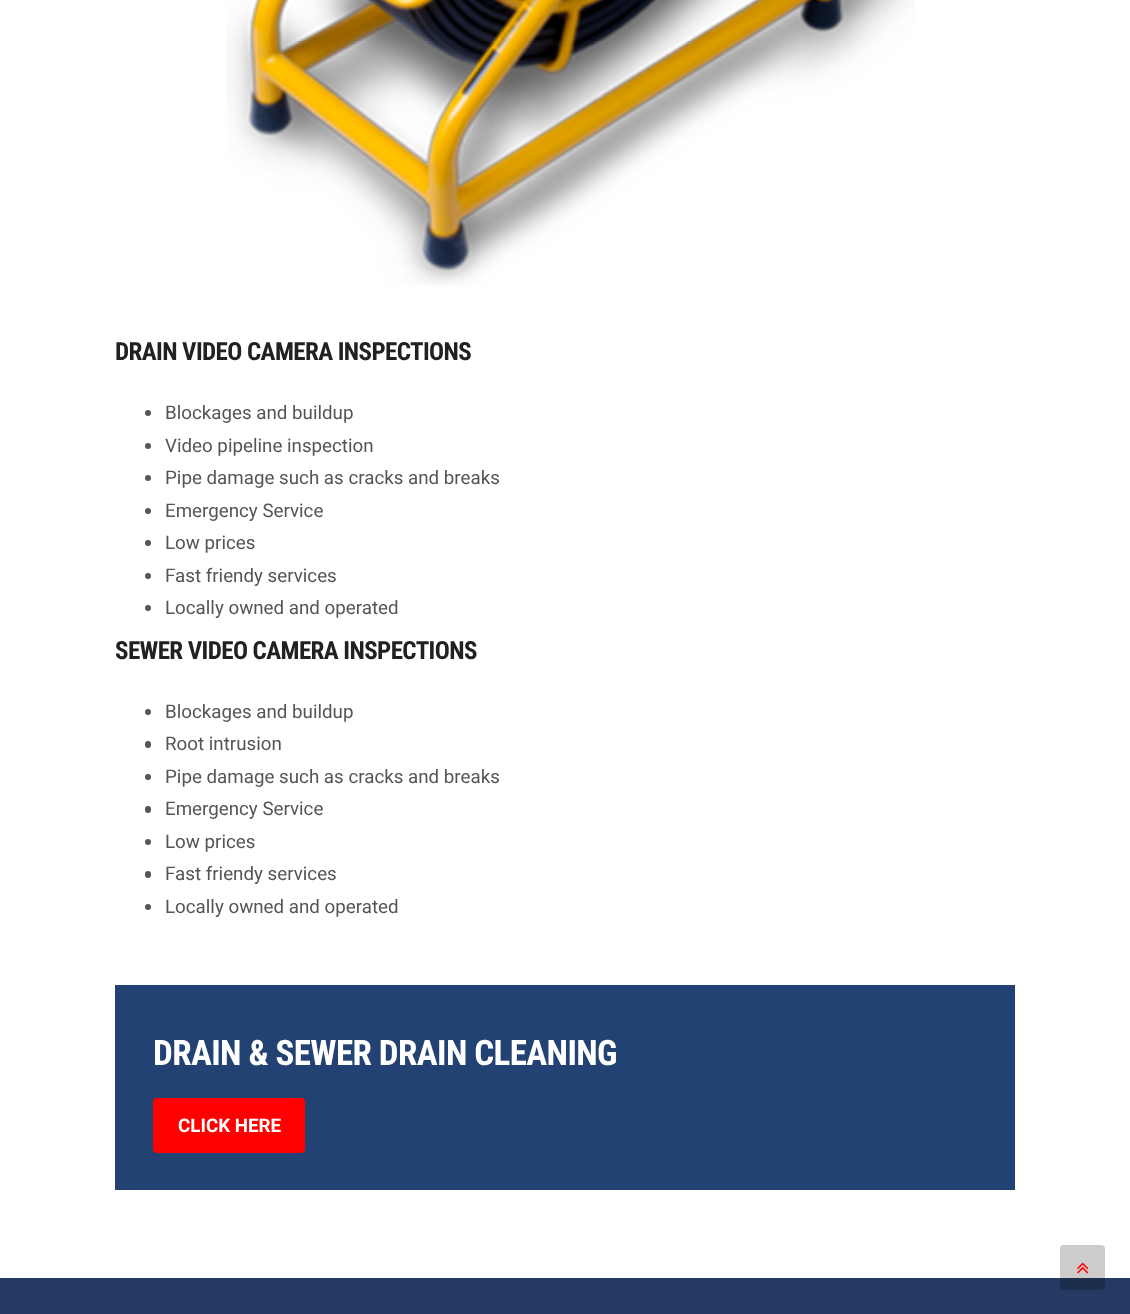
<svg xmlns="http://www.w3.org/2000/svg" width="1130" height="1314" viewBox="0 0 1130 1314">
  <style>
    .t1 { font: bold 25px Roboto Condensed; letter-spacing: -0.6px; fill: #212121; }
    .t2 { font: 18.75px Roboto; fill: #555; }
    .t3 { font: bold 35px Roboto Condensed; letter-spacing: -0.6px; fill: #fff; }
    .t4 { font: bold 18.75px Roboto; fill: #fff; }
  </style>
  <rect width="100%" height="100%" fill="#fff"/>
  <image x="226" y="0" width="689" height="286" href="images/1.png"/>
  <text x="115" y="360" class="t1">DRAIN VIDEO CAMERA INSPECTIONS</text>
  <circle cx="148" cy="413" r="3" fill="#555"/>
  <text x="165" y="419" class="t2">Blockages and buildup</text>
  <circle cx="148" cy="446" r="3" fill="#555"/>
  <text x="165" y="452" class="t2">Video pipeline inspection</text>
  <circle cx="148" cy="478" r="3" fill="#555"/>
  <text x="165" y="484" class="t2">Pipe damage such as cracks and breaks</text>
  <circle cx="148" cy="511" r="3" fill="#555"/>
  <text x="165" y="517" class="t2">Emergency Service</text>
  <circle cx="148" cy="543" r="3" fill="#555"/>
  <text x="165" y="549" class="t2">Low prices</text>
  <circle cx="148" cy="576" r="3" fill="#555"/>
  <text x="165" y="582" class="t2">Fast friendy services</text>
  <circle cx="148" cy="608" r="3" fill="#555"/>
  <text x="165" y="614" class="t2">Locally owned and operated</text>
  <text x="115" y="659" class="t1">SEWER VIDEO CAMERA INSPECTIONS</text>
  <circle cx="148" cy="712" r="3" fill="#555"/>
  <text x="165" y="718" class="t2">Blockages and buildup</text>
  <rect x="145" y="741" width="6" height="7" rx="3" fill="#555"/>
  <text x="165" y="750" class="t2">Root intrusion</text>
  <circle cx="148" cy="777" r="3" fill="#555"/>
  <text x="165" y="783" class="t2">Pipe damage such as cracks and breaks</text>
  <rect x="145" y="806" width="6" height="7" rx="3" fill="#555"/>
  <text x="165" y="815" class="t2">Emergency Service</text>
  <circle cx="148" cy="842" r="3" fill="#555"/>
  <text x="165" y="848" class="t2">Low prices</text>
  <rect x="145" y="871" width="6" height="7" rx="3" fill="#555"/>
  <text x="165" y="880" class="t2">Fast friendy services</text>
  <circle cx="148" cy="907" r="3" fill="#555"/>
  <text x="165" y="913" class="t2">Locally owned and operated</text>
  <rect x="115" y="985" width="900" height="205" fill="#224273"/>
  <text x="153" y="1065" class="t3">DRAIN &amp; SEWER DRAIN CLEANING</text>
  <rect x="153" y="1098" width="152" height="55" rx="4" fill="#f00"/>
  <text x="178" y="1132" class="t4">CLICK HERE</text>
  <rect x="0" y="1278" width="1130" height="36" fill="#243a62"/>
  <rect x="1060" y="1245" width="45" height="45" rx="4" fill="#00000033"/>
  <image x="1077" y="1262" width="12" height="12" href="images/2.png"/>
</svg>
